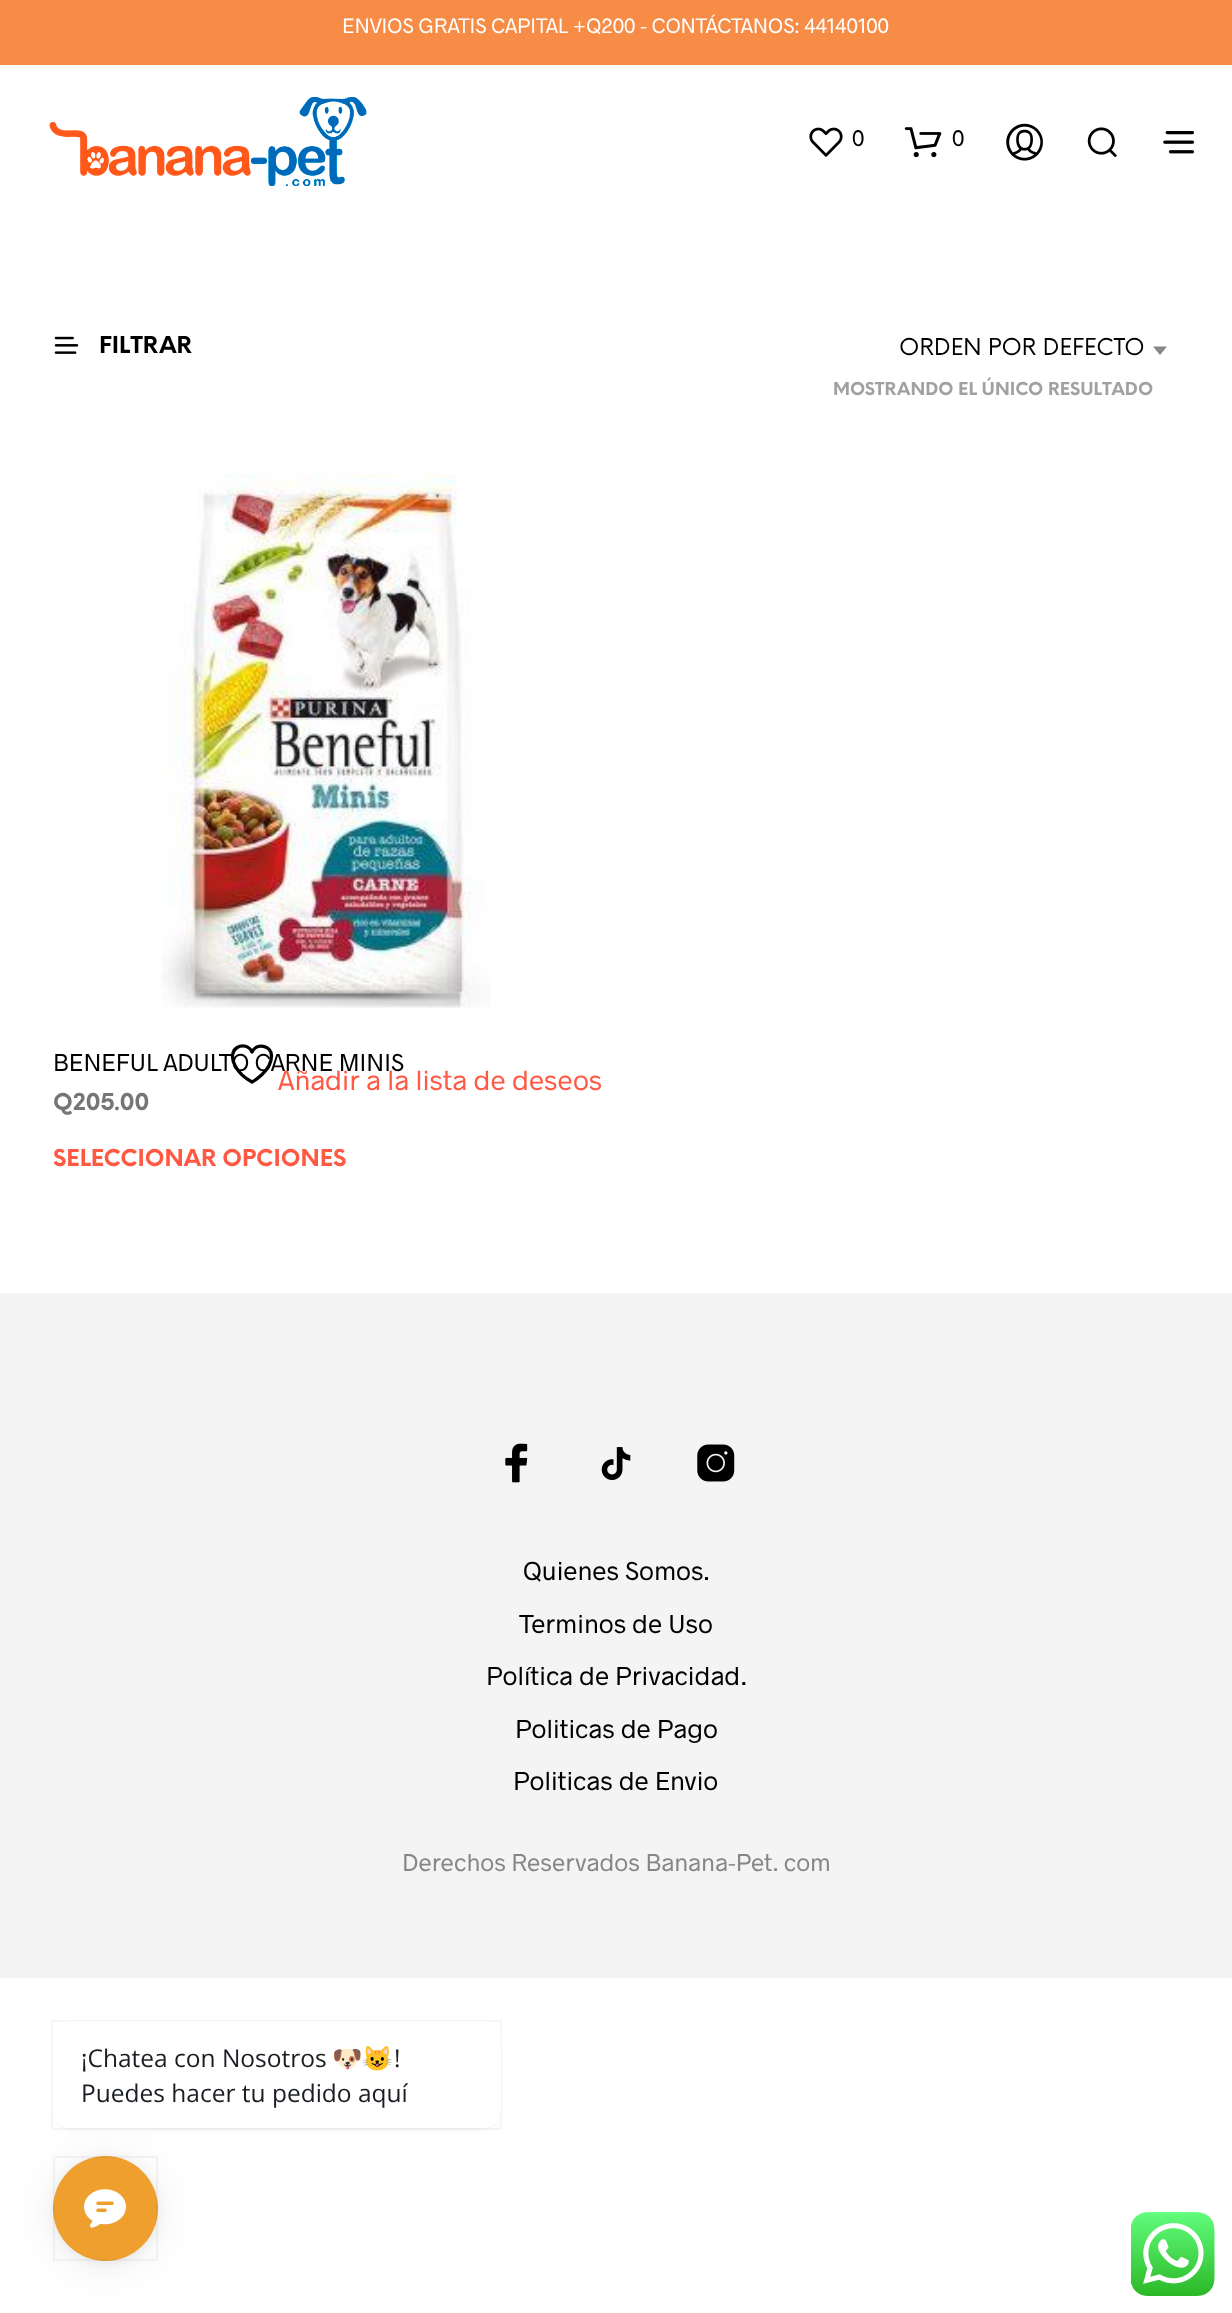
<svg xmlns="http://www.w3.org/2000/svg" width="1232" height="2313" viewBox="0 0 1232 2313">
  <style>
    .t1 { font: 21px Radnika; fill: #fff; }
    .t2 { font: 22.75px Radnika; fill: #000; }
    .t3 { font: bold 22.75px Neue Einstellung; fill: #000; }
    .t4 { font: 22.75px Neue Einstellung; fill: #000; }
    .t5 { font: bold 17.5px Neue Einstellung; fill: #a1a1a1; }
    .t6 { font: 24.5px Radnika; fill: #000; }
    .t7 { font: 28px Radnika; fill: #ff5943; }
    .t8 { font: bold 22.75px Neue Einstellung; fill: #767676; }
    .t9 { font: bold 22.75px Neue Einstellung; fill: #ff5943; }
    .t10 { font: 26.25px Radnika; fill: #000; }
    .t11 { font: 24.5px Radnika; fill: #868686; }
    .t12 { font: 24.5px Open Sans; fill: #1a1e23; }
    .t13 { font: 24.5px Noto Color Emoji; fill: #1a1e23; }
  </style>
  <rect width="100%" height="100%" fill="#fff"/>
  <rect x="0" y="0" width="1232" height="65" fill="#f68c46"/>
  <text x="342" y="33" class="t1">ENVIOS GRATIS CAPITAL +Q200 - CONTÁCTANOS: 44140100</text>
  <image x="49" y="97" width="318" height="89" href="images/1.png"/>
  <image x="809" y="127" width="34" height="30" href="images/2.png"/>
  <text x="852" y="146" class="t2">0</text>
  <image x="904" y="127" width="38" height="31" href="images/3.png"/>
  <text x="952" y="146" class="t2">0</text>
  <image x="1006" y="123" width="37" height="38" href="images/4.png"/>
  <image x="1087" y="127" width="30" height="30" href="images/5.png"/>
  <image x="1163" y="131" width="31" height="23" href="images/6.png"/>
  <image x="54" y="336" width="25" height="18" href="images/7.png"/>
  <text x="99" y="353" class="t3">FILTRAR</text>
  <text x="899" y="355" class="t4">ORDEN POR DEFECTO</text>
  <path d="M1153 346.5H1167L1160 355Z" fill="#888"/>
  <text x="833" y="395" class="t5">MOSTRANDO EL ÚNICO RESULTADO</text>
  <text x="53" y="1071" class="t6">BENEFUL ADULTO CARNE MINIS</text>
  <image x="161" y="474" width="330" height="534" href="images/8.png"/>
  <path d="M271.5 1056C271.5 1045 256.5 1042.5 252 1052C246.5 1039.5 224.5 1047 235.5 1066.5C239 1073 245.5 1078.5 252 1082C252 1082 271.5 1071.5 271.5 1056Z" fill="none" stroke="#000" stroke-width="3.3" stroke-linecap="round" stroke-linejoin="round"/>
  <text x="278" y="1090" class="t7">Añadir a la lista de deseos</text>
  <text x="53" y="1110" class="t8">Q205.00</text>
  <text x="53" y="1166" class="t9">SELECCIONAR OPCIONES</text>
  <rect x="0" y="1293" width="1232" height="685" fill="#f4f4f4"/>
  <image x="505" y="1443" width="23" height="40" href="images/9.png"/>
  <image x="601" y="1447" width="30" height="33" href="images/10.png"/>
  <image x="697" y="1444" width="38" height="38" href="images/11.png"/>
  <text x="523" y="1580" class="t10">Quienes Somos.</text>
  <text x="519" y="1633" class="t10">Terminos de Uso</text>
  <text x="486" y="1685" class="t10">Política de Privacidad.</text>
  <text x="515" y="1738" class="t10">Politicas de Pago</text>
  <text x="513" y="1790" class="t10">Politicas de Envio</text>
  <text x="402" y="1871" class="t11">Derechos Reservados Banana-Pet. com</text>
  <rect x="53" y="2160" width="105" height="105" rx="52.5" fill="#00000014" filter="blur(21px)"/>
  <path d="M54 2117C56 2124 63 2130 71 2130H483C493 2130 501 2122 501 2112V2041L500 2036V2110C500 2120 493 2128 483 2128H70C62 2128 56 2123 54 2117Z" fill="#fafafa"/>
  <rect x="52" y="2021" width="449" height="108" fill="none" stroke="#161a1e0a" stroke-width="2"/>
  <rect x="63" y="2039" width="427" height="86" rx="7" fill="#161a1e14" filter="blur(7px)"/>
  <rect x="53" y="2021" width="448" height="107" rx="18" fill="#fff"/>
  <text x="81" y="2067" class="t12">¡Chatea con Nosotros</text>
  <text x="332" y="2067" class="t13">🐶😺</text>
  <text x="394" y="2067" class="t12">!</text>
  <text x="81" y="2102" class="t12">Puedes hacer tu pedido aquí</text>
  <rect x="53" y="2158" width="105" height="105" rx="52.5" fill="#0000000f" filter="blur(5px)"/>
  <circle cx="105.5" cy="2208.5" r="52.5" fill="#ee9f2d"/>
  <rect x="54" y="2157" width="103" height="103" fill="none" stroke="#0000000a" stroke-width="2"/>
  <image x="84" y="2189" width="42" height="39" href="images/12.png"/>
  <image x="1131" y="2212" width="84" height="84" href="images/13.png"/>
</svg>
